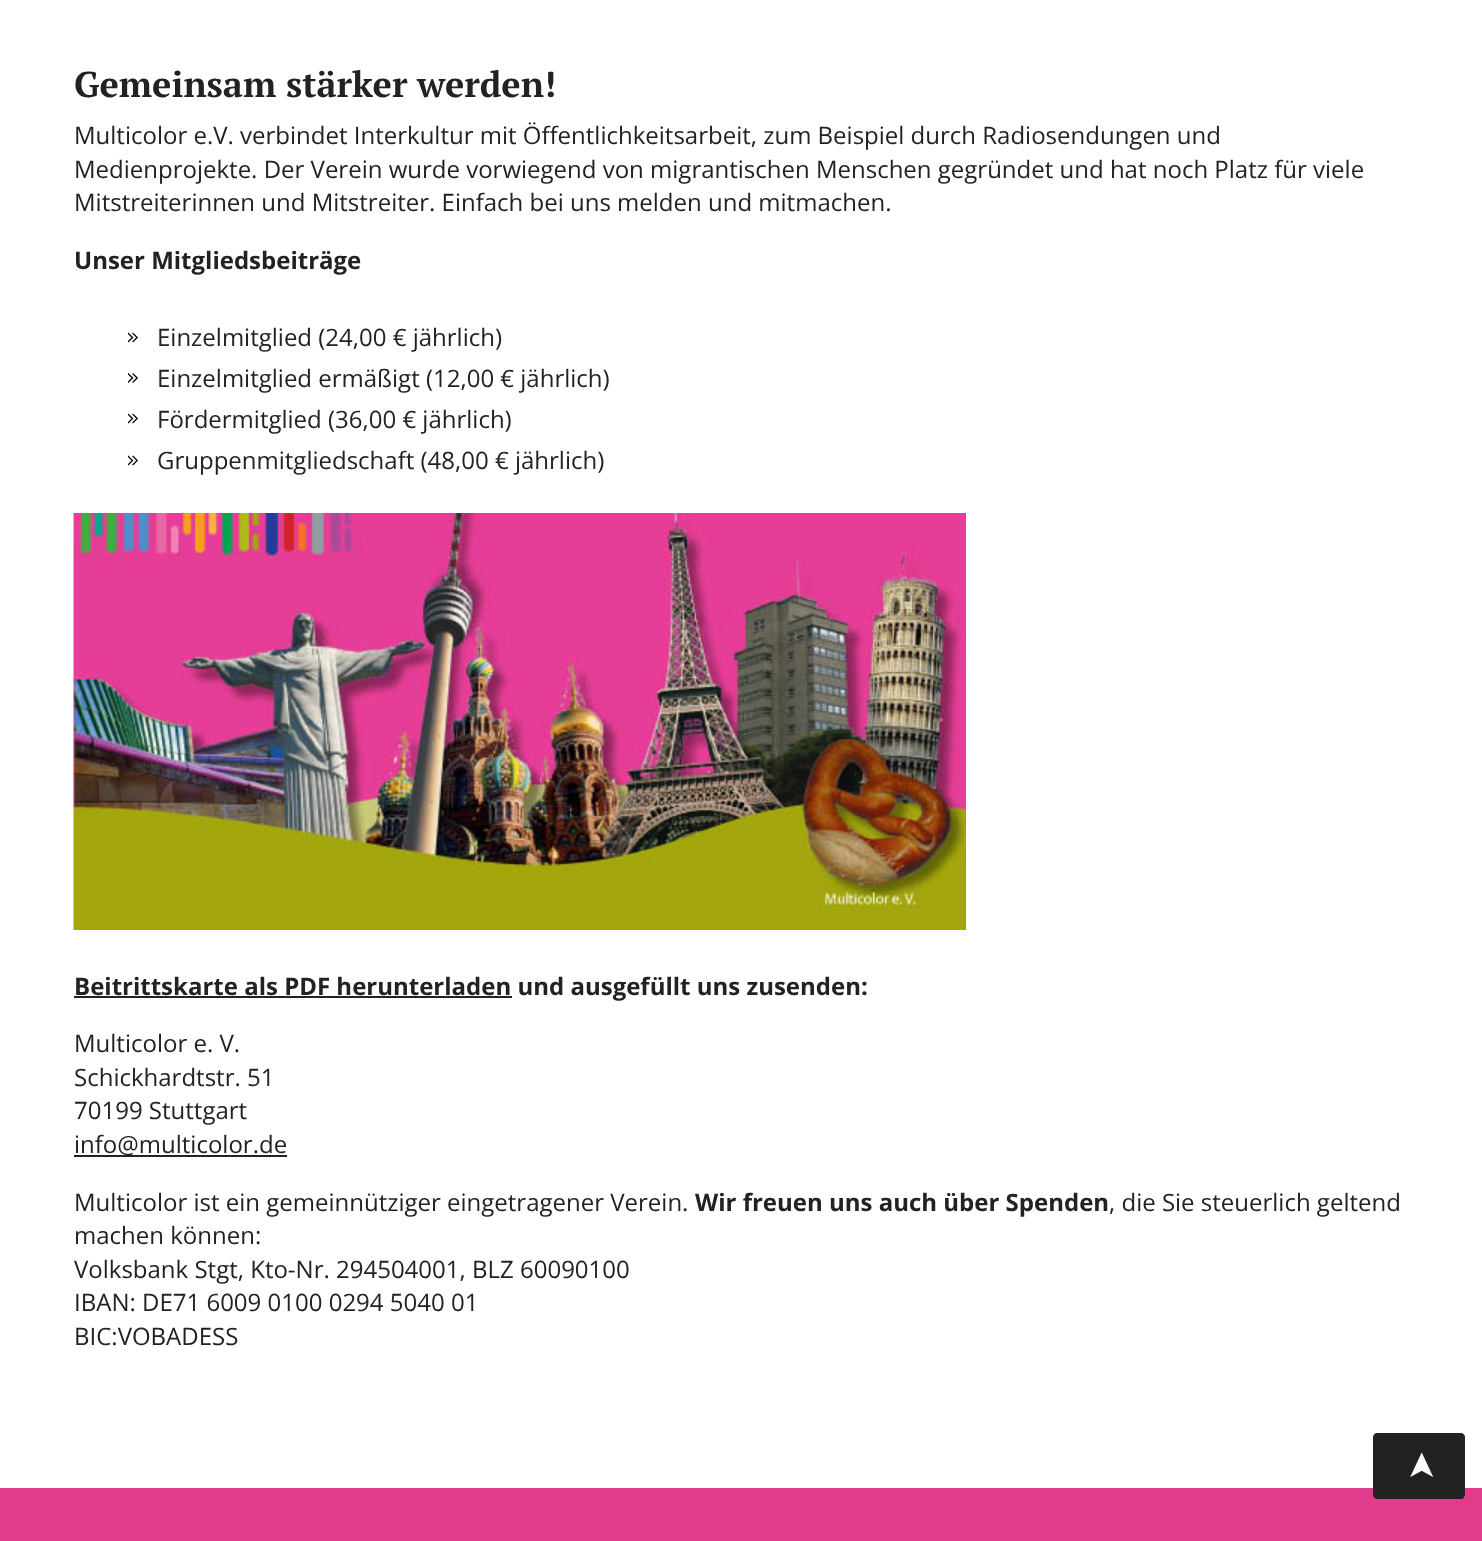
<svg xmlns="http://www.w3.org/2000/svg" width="1482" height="1541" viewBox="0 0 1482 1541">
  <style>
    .t1 { font: bold 36px PT Serif; fill: #222; }
    .t2 { font: 24px Open Sans; fill: #222; }
    .t3 { font: bold 24px Open Sans; fill: #222; }
    .t4 { font: 36px DejaVu Sans; fill: #fff; }
  </style>
  <rect width="100%" height="100%" fill="#fff"/>
  <text x="74" y="97" class="t1">Gemeinsam stärker werden!</text>
  <text x="74" y="144" class="t2">Multicolor e.V. verbindet Interkultur mit Öffentlichkeitsarbeit, zum Beispiel durch Radiosendungen und</text>
  <text x="74" y="178" class="t2">Medienprojekte. Der Verein wurde vorwiegend von migrantischen Menschen gegründet und hat noch Platz für viele</text>
  <text x="74" y="211" class="t2">Mitstreiterinnen und Mitstreiter. Einfach bei uns melden und mitmachen.</text>
  <text x="74" y="269" class="t3">Unser Mitgliedsbeiträge</text>
  <image x="128" y="332" width="10" height="11" href="images/1.png"/>
  <text x="157" y="346" class="t2">Einzelmitglied (24,00 € jährlich)</text>
  <image x="128" y="373" width="10" height="10" href="images/2.png"/>
  <text x="157" y="387" class="t2">Einzelmitglied ermäßigt (12,00 € jährlich)</text>
  <image x="128" y="413" width="10" height="11" href="images/1.png"/>
  <text x="157" y="428" class="t2">Fördermitglied (36,00 € jährlich)</text>
  <image x="128" y="455" width="10" height="11" href="images/1.png"/>
  <text x="157" y="469" class="t2">Gruppenmitgliedschaft (48,00 € jährlich)</text>
  <image x="73" y="513" width="893" height="417" href="images/3.png"/>
  <rect x="74" y="996" width="438" height="2" fill="#222"/>
  <text x="74" y="995" class="t3">Beitrittskarte als PDF herunterladen und ausgefüllt uns zusenden:</text>
  <text x="74" y="1052" class="t2">Multicolor e. V.</text>
  <text x="74" y="1086" class="t2">Schickhardtstr. 51</text>
  <text x="74" y="1119" class="t2">70199 Stuttgart</text>
  <rect x="74" y="1155" width="213" height="2" fill="#222"/>
  <text x="74" y="1153" class="t2">info@multicolor.de</text>
  <text x="74" y="1211" class="t2">Multicolor ist ein gemeinnütziger eingetragener Verein.</text>
  <text x="695" y="1211" class="t3">Wir freuen uns auch über Spenden</text>
  <text x="1109" y="1211" class="t2">, die Sie steuerlich geltend</text>
  <text x="74" y="1244" class="t2">machen können:</text>
  <text x="74" y="1278" class="t2">Volksbank Stgt, Kto-Nr. 294504001, BLZ 60090100</text>
  <text x="74" y="1311" class="t2">IBAN: DE71 6009 0100 0294 5040 01</text>
  <text x="74" y="1345" class="t2">BIC:VOBADESS</text>
  <rect x="0" y="1488" width="1482" height="53" fill="#e13c8b"/>
  <path d="M1373 1494V1437C1373 1435 1375 1433 1377 1433H1461C1463 1433 1465 1435 1465 1437V1494C1465 1497 1463 1499 1461 1499H1377C1375 1499 1373 1497 1373 1494Z" fill="#222"/>
  <text x="1433" y="1481" transform="rotate(-90 1433 1481)" class="t4">➤</text>
</svg>
